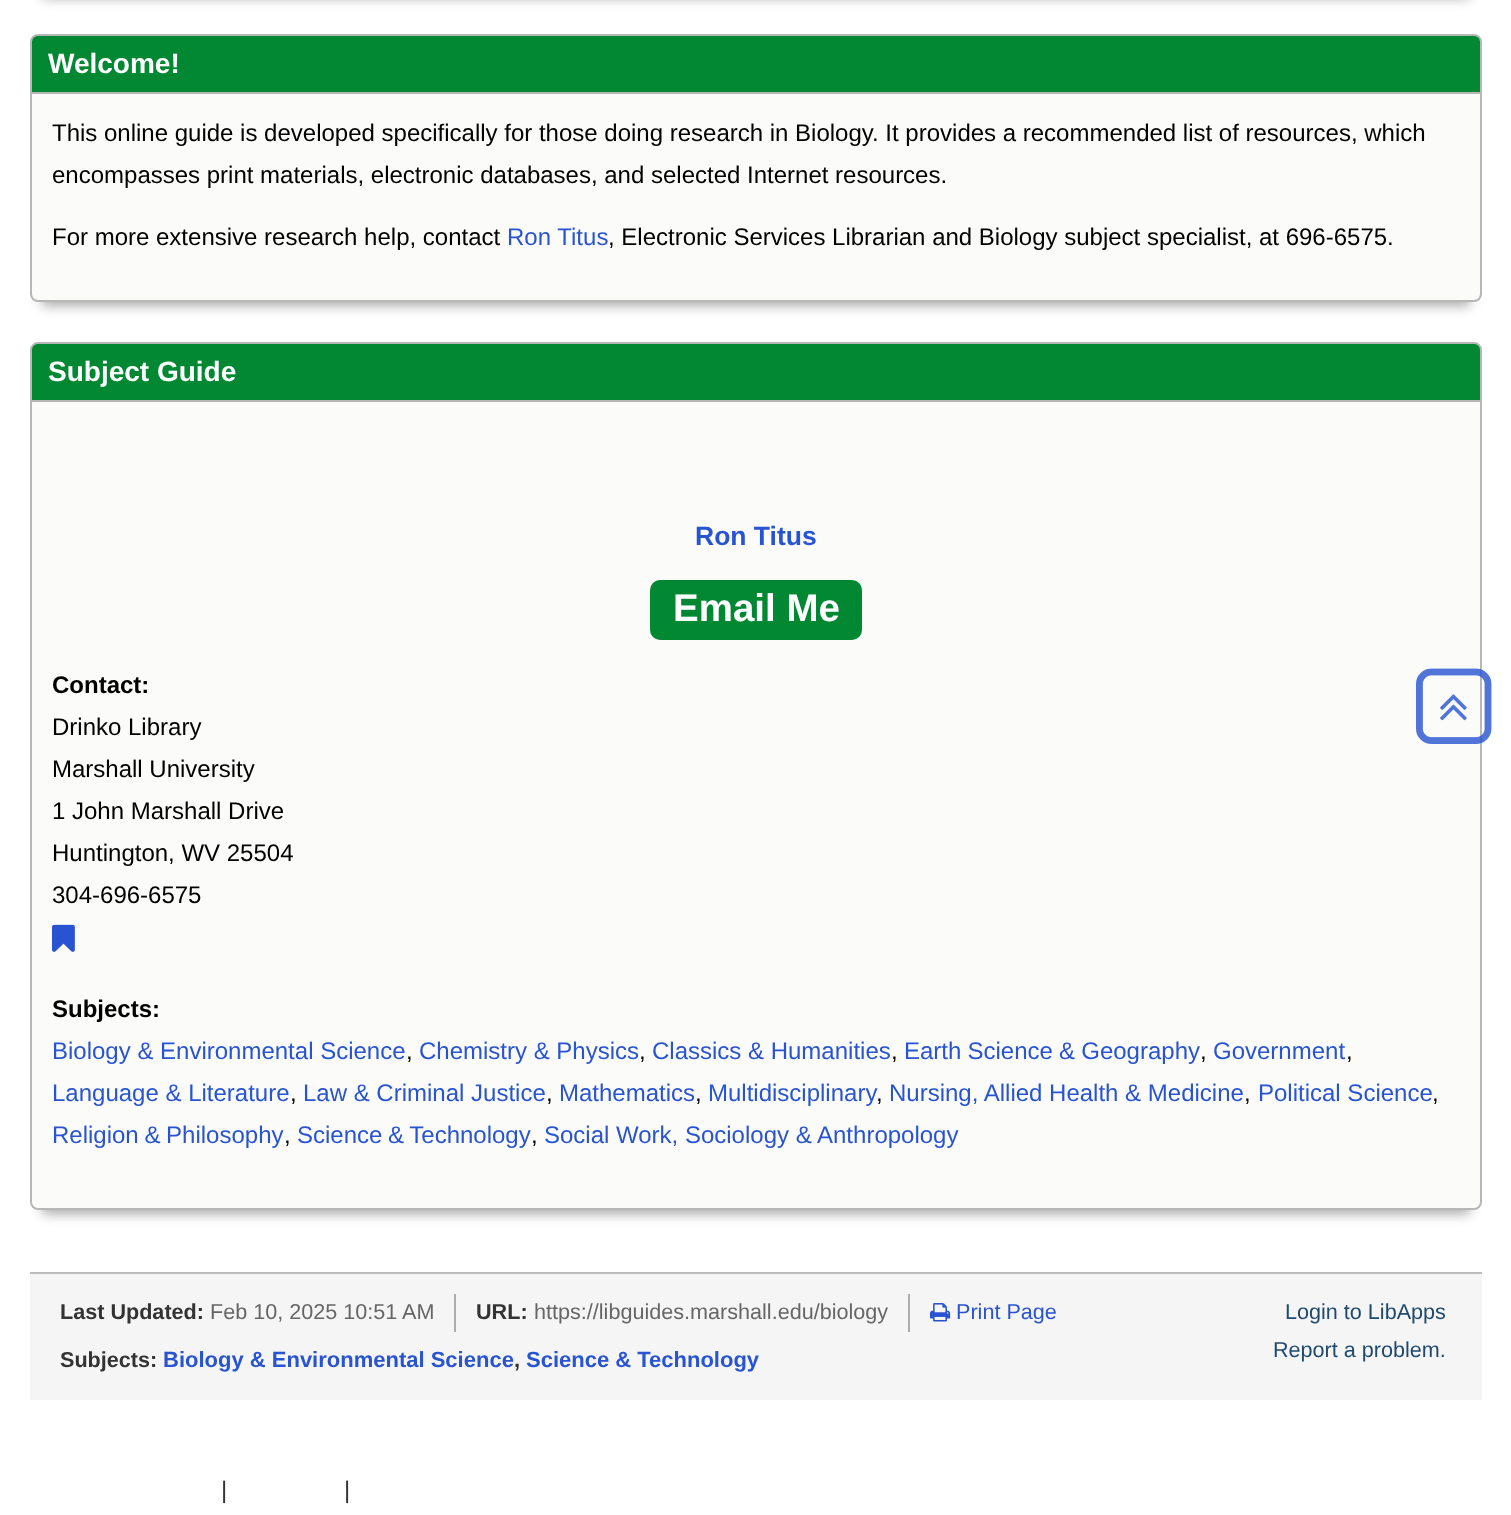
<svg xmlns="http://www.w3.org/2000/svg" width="1511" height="1515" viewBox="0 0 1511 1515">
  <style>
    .t1 { font: bold 28px Liberation Sans; fill: #fff; }
    .t2 { font: 24px Liberation Sans; fill: #000; }
    .t3 { font: 24px Liberation Sans; fill: #2954d1; }
    .t4 { font: bold 26.5px Liberation Sans; fill: #2954d1; }
    .t5 { font: bold 38.5px Liberation Sans; fill: #fff; }
    .t6 { font: bold 24px Liberation Sans; fill: #000; }
    .t7 { font: bold 21.6px Liberation Sans; fill: #333; }
    .t8 { font: 21.6px Liberation Sans; fill: #666; }
    .t9 { font: 21.6px Liberation Sans; fill: #2954d1; }
    .t10 { font: 21.6px Liberation Sans; fill: #1f496e; }
    .t11 { font: bold 22px Liberation Sans; fill: #2954d1; }
    .t12 { font: bold 22px Liberation Sans; fill: #333; }
    .t13 { font: 24px Liberation Sans; fill: #333; }
  </style>
  <rect width="100%" height="100%" fill="#fff"/>
  <rect x="42" y="-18" width="1428" height="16" fill="#aaa" filter="blur(6px)"/>
  <rect x="42" y="62" width="1428" height="244" fill="#aaa" filter="blur(6px)"/>
  <rect x="31" y="35" width="1450" height="266" rx="7" fill="#fbfbfa" stroke="#b7b7b7" stroke-width="2"/>
  <path d="M38 36H1474C1477.5 36 1480 38.5 1480 42V94H32V42C32 38.5 34.5 36 38 36Z" fill="#028833"/>
  <rect x="32" y="92" width="1448" height="2" fill="#b7b7b7"/>
  <text x="48" y="73" class="t1">Welcome!</text>
  <text x="52" y="141" class="t2">This online guide is developed specifically for those doing research in Biology. It provides a recommended list of resources, which</text>
  <text x="52" y="183" class="t2">encompasses print materials, electronic databases, and selected Internet resources.</text>
  <text x="52" y="245" class="t2">For more extensive research help, contact</text>
  <text x="507" y="245" class="t3">Ron Titus</text>
  <text x="608" y="245" class="t2">, Electronic Services Librarian and Biology subject specialist, at 696-6575.</text>
  <rect x="42" y="370" width="1428" height="844" fill="#aaa" filter="blur(6px)"/>
  <rect x="31" y="343" width="1450" height="866" rx="7" fill="#fbfbfa" stroke="#b7b7b7" stroke-width="2"/>
  <path d="M38 344H1474C1477.5 344 1480 346.5 1480 350V402H32V350C32 346.5 34.5 344 38 344Z" fill="#028833"/>
  <rect x="32" y="400" width="1448" height="2" fill="#b7b7b7"/>
  <text x="48" y="381" class="t1">Subject Guide</text>
  <text x="695" y="545" class="t4">Ron Titus</text>
  <rect x="650" y="580" width="212" height="60" rx="10" fill="#028833"/>
  <text x="673" y="621" class="t5">Email Me</text>
  <text x="52" y="693" class="t6">Contact:</text>
  <text x="52" y="735" class="t2">Drinko Library</text>
  <text x="52" y="777" class="t2">Marshall University</text>
  <text x="52" y="819" class="t2">1 John Marshall Drive</text>
  <text x="52" y="861" class="t2">Huntington, WV 25504</text>
  <text x="52" y="903" class="t2">304-696-6575</text>
  <image x="52" y="924" width="23" height="28" href="images/1.png"/>
  <text x="52" y="1017" class="t6">Subjects:</text>
  <text x="52" y="1059" class="t3">Biology &amp; Environmental Science</text>
  <text x="406" y="1059" class="t2">,</text>
  <text x="419" y="1059" class="t3">Chemistry &amp; Physics</text>
  <text x="639" y="1059" class="t2">,</text>
  <text x="652" y="1059" class="t3">Classics &amp; Humanities</text>
  <text x="891" y="1059" class="t2">,</text>
  <text x="904" y="1059" word-spacing="-0.5" class="t3">Earth Science &amp; Geography</text>
  <text x="1200" y="1059" class="t2">,</text>
  <text x="1213" y="1059" class="t3">Government</text>
  <text x="1346" y="1059" class="t2">,</text>
  <text x="52" y="1101" class="t3">Language &amp; Literature</text>
  <text x="290" y="1101" class="t2">,</text>
  <text x="303" y="1101" class="t3">Law &amp; Criminal Justice</text>
  <text x="546" y="1101" class="t2">,</text>
  <text x="559" y="1101" class="t3">Mathematics</text>
  <text x="695" y="1101" class="t2">,</text>
  <text x="708" y="1101" class="t3">Multidisciplinary</text>
  <text x="876" y="1101" class="t2">,</text>
  <text x="889" y="1101" class="t3">Nursing, Allied Health &amp; Medicine</text>
  <text x="1244" y="1101" class="t2">,</text>
  <text x="1258" y="1101" class="t3">Political Science</text>
  <text x="1432" y="1101" class="t2">,</text>
  <text x="52" y="1143" word-spacing="-1" class="t3">Religion &amp; Philosophy</text>
  <text x="284" y="1143" class="t2">,</text>
  <text x="297" y="1143" word-spacing="-1" class="t3">Science &amp; Technology</text>
  <text x="531" y="1143" class="t2">,</text>
  <text x="544" y="1143" class="t3">Social Work, Sociology &amp; Anthropology</text>
  <image x="1416" y="668" width="76" height="76" href="images/2.png"/>
  <image x="1440" y="694" width="27" height="27" href="images/3.png"/>
  <rect x="30" y="1274" width="1452" height="126" fill="#f5f5f5"/>
  <rect x="30" y="1272" width="1452" height="2" fill="#bbb"/>
  <rect x="454" y="1294" width="2" height="38" fill="#acacac"/>
  <text x="60" y="1319" class="t7">Last Updated:</text>
  <text x="210" y="1319" class="t8">Feb 10, 2025 10:51 AM</text>
  <rect x="908" y="1294" width="2" height="38" fill="#acacac"/>
  <text x="476" y="1319" class="t7">URL:</text>
  <text x="534" y="1319" class="t8">https://libguides.marshall.edu/biology</text>
  <image x="930" y="1303" width="21" height="19" href="images/4.png"/>
  <text x="956" y="1319" class="t9">Print Page</text>
  <text x="1285" y="1319" class="t10">Login to LibApps</text>
  <text x="60" y="1367" class="t7">Subjects:</text>
  <text x="163" y="1367" class="t11">Biology &amp; Environmental Science</text>
  <text x="514" y="1367" class="t12">,</text>
  <text x="526" y="1367" class="t11">Science &amp; Technology</text>
  <text x="1273" y="1357" class="t10">Report a problem.</text>
  <text x="221" y="1498" class="t13">|</text>
  <text x="344" y="1498" class="t13">|</text>
</svg>
